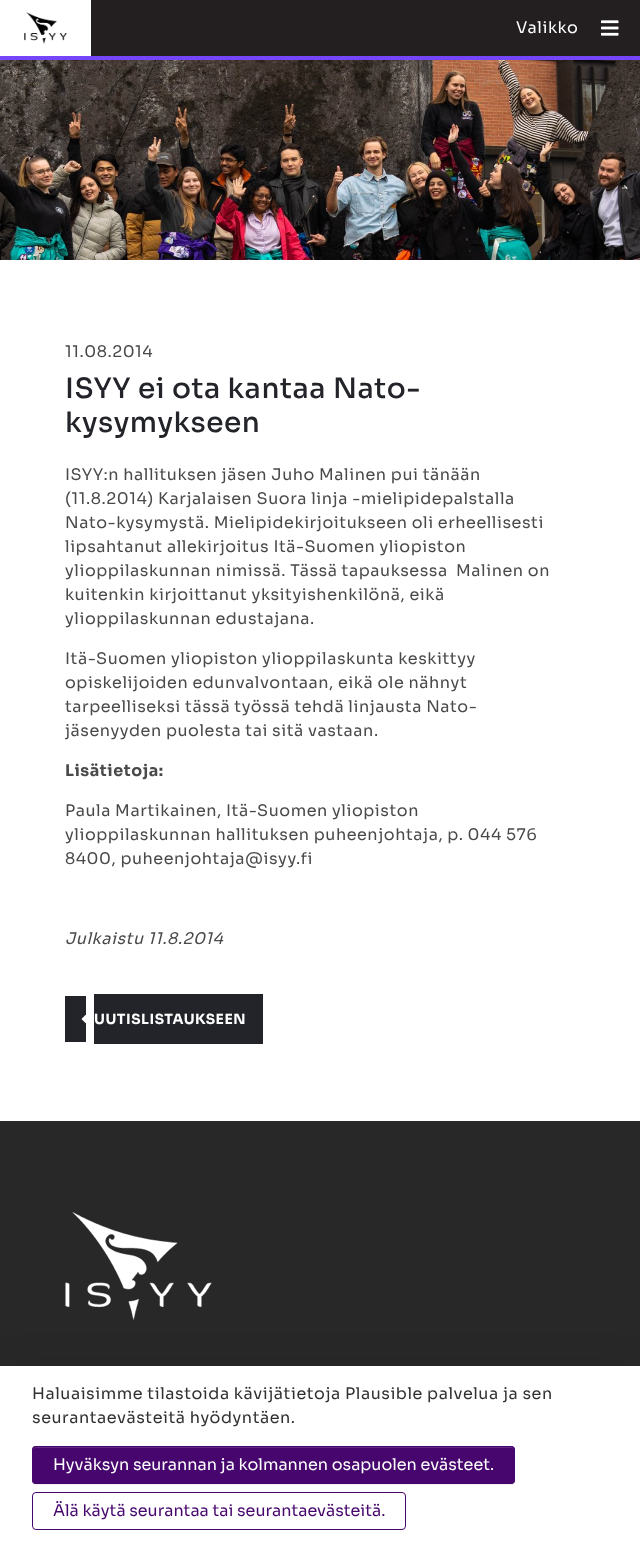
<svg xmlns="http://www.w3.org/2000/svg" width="640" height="1554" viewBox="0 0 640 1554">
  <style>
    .t1 { font: 16px Sora; letter-spacing: 0.55px; fill: #fff; }
    .t2 { font: 16px Sora; letter-spacing: 0.55px; fill: #49494a; }
    .t3 { font: 500 28px Sora; letter-spacing: 0.55px; fill: #222429; }
    .t4 { font: bold 16px Sora; letter-spacing: 0.55px; fill: #49494a; }
    .t5 { font: italic 16px Sora; letter-spacing: 0.55px; fill: #49494a; }
    .t6 { font: bold 14px Sora; letter-spacing: 0.55px; fill: #fff; }
    .t7 { font: 16px Sora; letter-spacing: 0.55px; fill: #303030; }
    .t8 { font: 16px Sora; fill: #fff; }
    .t9 { font: 16px Sora; fill: #46066d; }
  </style>
  <rect width="100%" height="100%" fill="#fff"/>
  <rect x="0" y="56" width="640" height="4" fill="#7546f9"/>
  <image x="24" y="12" width="43" height="32" href="images/1.png"/>
  <rect x="91" y="0" width="549" height="56" fill="#231f20"/>
  <text x="516" y="33" class="t1">Valikko</text>
  <image x="601" y="20" width="18" height="16" href="images/2.png"/>
  <image x="0" y="60" width="640" height="200" href="images/3.png"/>
  <text x="65" y="357" class="t2">11.08.2014</text>
  <text x="65" y="398" class="t3">ISYY ei ota kantaa Nato-</text>
  <text x="65" y="432" class="t3">kysymykseen</text>
  <text x="65" y="480" class="t2">ISYY:n hallituksen jäsen Juho Malinen pui tänään</text>
  <text x="65" y="504" class="t2">(11.8.2014) Karjalaisen Suora linja -mielipidepalstalla</text>
  <text x="65" y="528" class="t2">Nato-kysymystä. Mielipidekirjoitukseen oli erheellisesti</text>
  <text x="65" y="552" class="t2">lipsahtanut allekirjoitus Itä-Suomen yliopiston</text>
  <text x="65" y="576" class="t2" xml:space="preserve">ylioppilaskunnan nimissä. Tässä tapauksessa  Malinen on</text>
  <text x="65" y="600" class="t2">kuitenkin kirjoittanut yksityishenkilönä, eikä</text>
  <text x="65" y="624" class="t2">ylioppilaskunnan edustajana.</text>
  <text x="65" y="664" class="t2">Itä-Suomen yliopiston ylioppilaskunta keskittyy</text>
  <text x="65" y="688" class="t2">opiskelijoiden edunvalvontaan, eikä ole nähnyt</text>
  <text x="65" y="712" class="t2">tarpeelliseksi tässä työssä tehdä linjausta Nato-</text>
  <text x="65" y="736" class="t2">jäsenyyden puolesta tai sitä vastaan.</text>
  <text x="65" y="776" class="t4">Lisätietoja:</text>
  <text x="65" y="816" class="t2">Paula Martikainen, Itä-Suomen yliopiston</text>
  <text x="65" y="840" class="t2">ylioppilaskunnan hallituksen puheenjohtaja, p. 044 576</text>
  <text x="65" y="864" class="t2">8400, puheenjohtaja@isyy.fi</text>
  <text x="65" y="944" class="t5">Julkaistu 11.8.2014</text>
  <rect x="65" y="996" width="21" height="46" fill="#222429"/>
  <rect x="94" y="994" width="169" height="50" fill="#222429"/>
  <image x="81" y="1015" width="5" height="8" href="images/4.png"/>
  <text x="94" y="1024" class="t6">UUTISLISTAUKSEEN</text>
  <rect x="0" y="1121" width="640" height="245" fill="#282828"/>
  <image x="65" y="1211" width="147" height="109" href="images/5.png"/>
  <rect x="0" y="1382" width="640" height="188" fill="#0000002e" filter="blur(24px)"/>
  <rect x="0" y="1366" width="640" height="188" fill="#fff"/>
  <text x="32" y="1399" class="t7">Haluaisimme tilastoida kävijätietoja Plausible palvelua ja sen</text>
  <text x="32" y="1423" class="t7">seurantaevästeitä hyödyntäen.</text>
  <rect x="32" y="1447" width="483" height="38" rx="4" fill="#00000012" filter="blur(0.5px)"/>
  <rect x="32" y="1446" width="483" height="38" rx="4" fill="#46066d"/>
  <path d="M36 1448H511C513 1448 514 1449 514 1451V1450C514 1448 513 1447 511 1447H36C34 1447 33 1448 33 1450V1451C33 1449 34 1448 36 1448Z" fill="#622b83"/>
  <rect x="32.5" y="1446.5" width="482" height="37" rx="3.5" fill="none" stroke="#46066d"/>
  <text x="53" y="1470" class="t8">Hyväksyn seurannan ja kolmannen osapuolen evästeet.</text>
  <rect x="32.5" y="1492.5" width="373" height="37" rx="3.5" fill="none" stroke="#46066d"/>
  <text x="53" y="1516" class="t9">Älä käytä seurantaa tai seurantaevästeitä.</text>
</svg>
